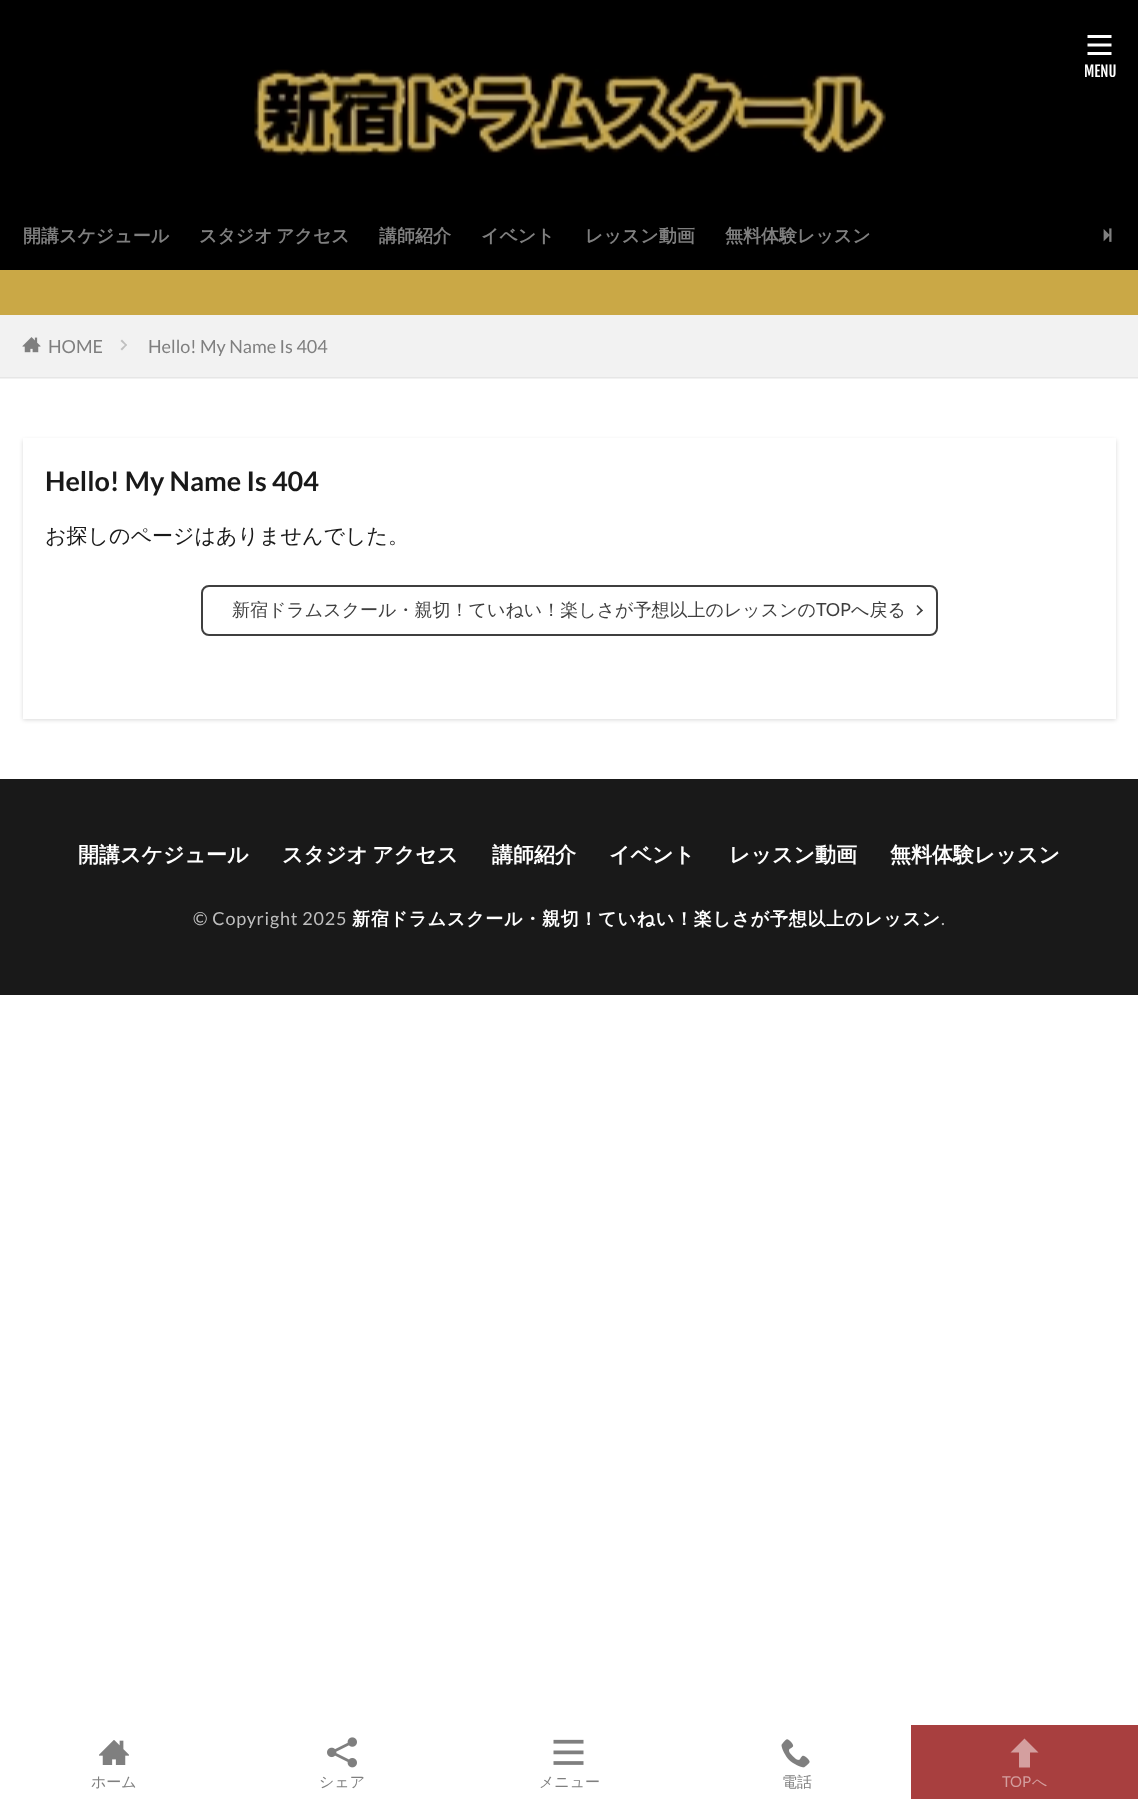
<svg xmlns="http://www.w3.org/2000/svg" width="1138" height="1799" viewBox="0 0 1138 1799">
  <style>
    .t1 { font: 15px Fjalla One; fill: #fff; }
    .t2 { font: bold 18px WenQuanYi Zen Hei; fill: #7f7f7f; }
    .t3 { font: 18px Lato; fill: #7f7f7f; }
    .t4 { font: bold 27px Lato; fill: #191919; }
    .t5 { font: 500 21px WenQuanYi Zen Hei; fill: #191919; }
    .t6 { font: 500 18px WenQuanYi Zen Hei; fill: #3f3f3f; }
    .t7 { font: 18px Lato; fill: #3f3f3f; }
    .t8 { font: bold 21px WenQuanYi Zen Hei; fill: #fff; }
    .t9 { font: 18px Lato; letter-spacing: 0.75px; fill: #bfbfbf; }
    .t10 { font: bold 18px WenQuanYi Zen Hei; letter-spacing: 0.75px; fill: #fff; }
    .t11 { font: 500 15px WenQuanYi Zen Hei; fill: #7f7f7f; }
    .t12 { font: 15px Lato; fill: #d49f9f; }
    .t13 { font: 500 15px WenQuanYi Zen Hei; fill: #d49f9f; }
  </style>
  <rect width="100%" height="100%" fill="#fff"/>
  <rect x="0" y="378" width="1138" height="1" fill="#f2f2f2"/>
  <rect x="0" y="0" width="1138" height="270" fill="#000"/>
  <image x="254" y="69" width="632" height="87" href="images/1.png"/>
  <image x="1087" y="35" width="25" height="20" href="images/2.png"/>
  <text x="1084" y="77" class="t1">MENU</text>
  <text x="23" y="242" class="t2">開講スケジュール</text>
  <text x="199" y="242" word-spacing="-2" class="t2">スタジオ アクセス</text>
  <text x="379" y="242" class="t2">講師紹介</text>
  <text x="481" y="242" class="t2">イベント</text>
  <text x="585" y="242" class="t2">レッスン動画</text>
  <text x="725" y="242" class="t2">無料体験レッスン</text>
  <image x="1103" y="228" width="9" height="14" href="images/3.png"/>
  <rect x="0" y="270" width="1138" height="45" fill="#caa846"/>
  <rect x="0" y="315" width="1138" height="62" fill="#f2f2f2"/>
  <rect x="0" y="377" width="1138" height="1" fill="#e6e6e6"/>
  <image x="22" y="337" width="19" height="16" href="images/4.png"/>
  <text x="48" y="353" class="t3">HOME</text>
  <path d="M122 339.5L127 345L126 346L120.5 341Z" fill="#bfbfbf"/>
  <path d="M126 344L127 345L122 350.5L120.5 349Z" fill="#bfbfbf"/>
  <text x="148" y="353" class="t3">Hello! My Name Is 404</text>
  <rect x="23" y="440" width="1093" height="280" fill="#00000026" filter="blur(2px)"/>
  <rect x="23" y="438" width="1093" height="281" fill="#fff"/>
  <text x="45" y="491" class="t4">Hello! My Name Is 404</text>
  <text x="45" y="543" class="t5">お探しのページはありませんでした。</text>
  <rect x="202" y="586" width="735" height="49" rx="7" fill="none" stroke="#3f3f3f" stroke-width="2"/>
  <text x="232" y="616" class="t6">新宿ドラムスクール・親切！ていねい！楽しさが予想以上のレッスンの</text>
  <text x="816" y="616" class="t7">TOP</text>
  <text x="851" y="616" class="t6">へ戻る</text>
  <path d="M917.5 605L923 610.5L921.5 611.5L916.5 606Z" fill="#3f3f3f"/>
  <path d="M921.5 609.5L923 610.5L917.5 615.5L916.5 614.5Z" fill="#3f3f3f"/>
  <rect x="0" y="779" width="1138" height="216" fill="#191919"/>
  <text x="78" y="862" class="t8">開講スケジュール</text>
  <text x="282" y="862" word-spacing="-2" class="t8">スタジオ アクセス</text>
  <text x="492" y="862" class="t8">講師紹介</text>
  <text x="609" y="862" class="t8">イベント</text>
  <text x="729" y="862" class="t8">レッスン動画</text>
  <text x="890" y="862" class="t8">無料体験レッスン</text>
  <text x="193" y="925" class="t9">© Copyright 2025</text>
  <text x="352" y="925" class="t10">新宿ドラムスクール・親切！ていねい！楽しさが予想以上のレッスン</text>
  <text x="941" y="925" class="t9">.</text>
  <image x="99" y="1740" width="30" height="25" href="images/5.png"/>
  <text x="91" y="1787" class="t11">ホーム</text>
  <image x="327" y="1737" width="30" height="31" href="images/6.png"/>
  <text x="319" y="1787" class="t11">シェア</text>
  <image x="553" y="1739" width="31" height="26" href="images/7.png"/>
  <text x="539" y="1787" class="t11">メニュー</text>
  <image x="781" y="1739" width="29" height="29" href="images/8.png"/>
  <text x="782" y="1787" class="t11">電話</text>
  <rect x="911" y="1725" width="227" height="74" fill="#a83f3f"/>
  <path d="M1024.5 1738.5L1010.5 1752.5H1019V1767.5H1030V1752.5H1038.5Z" fill="#d49f9f"/>
  <text x="1002" y="1787" class="t12">TOP</text>
  <text x="1032" y="1787" class="t13">へ</text>
</svg>
